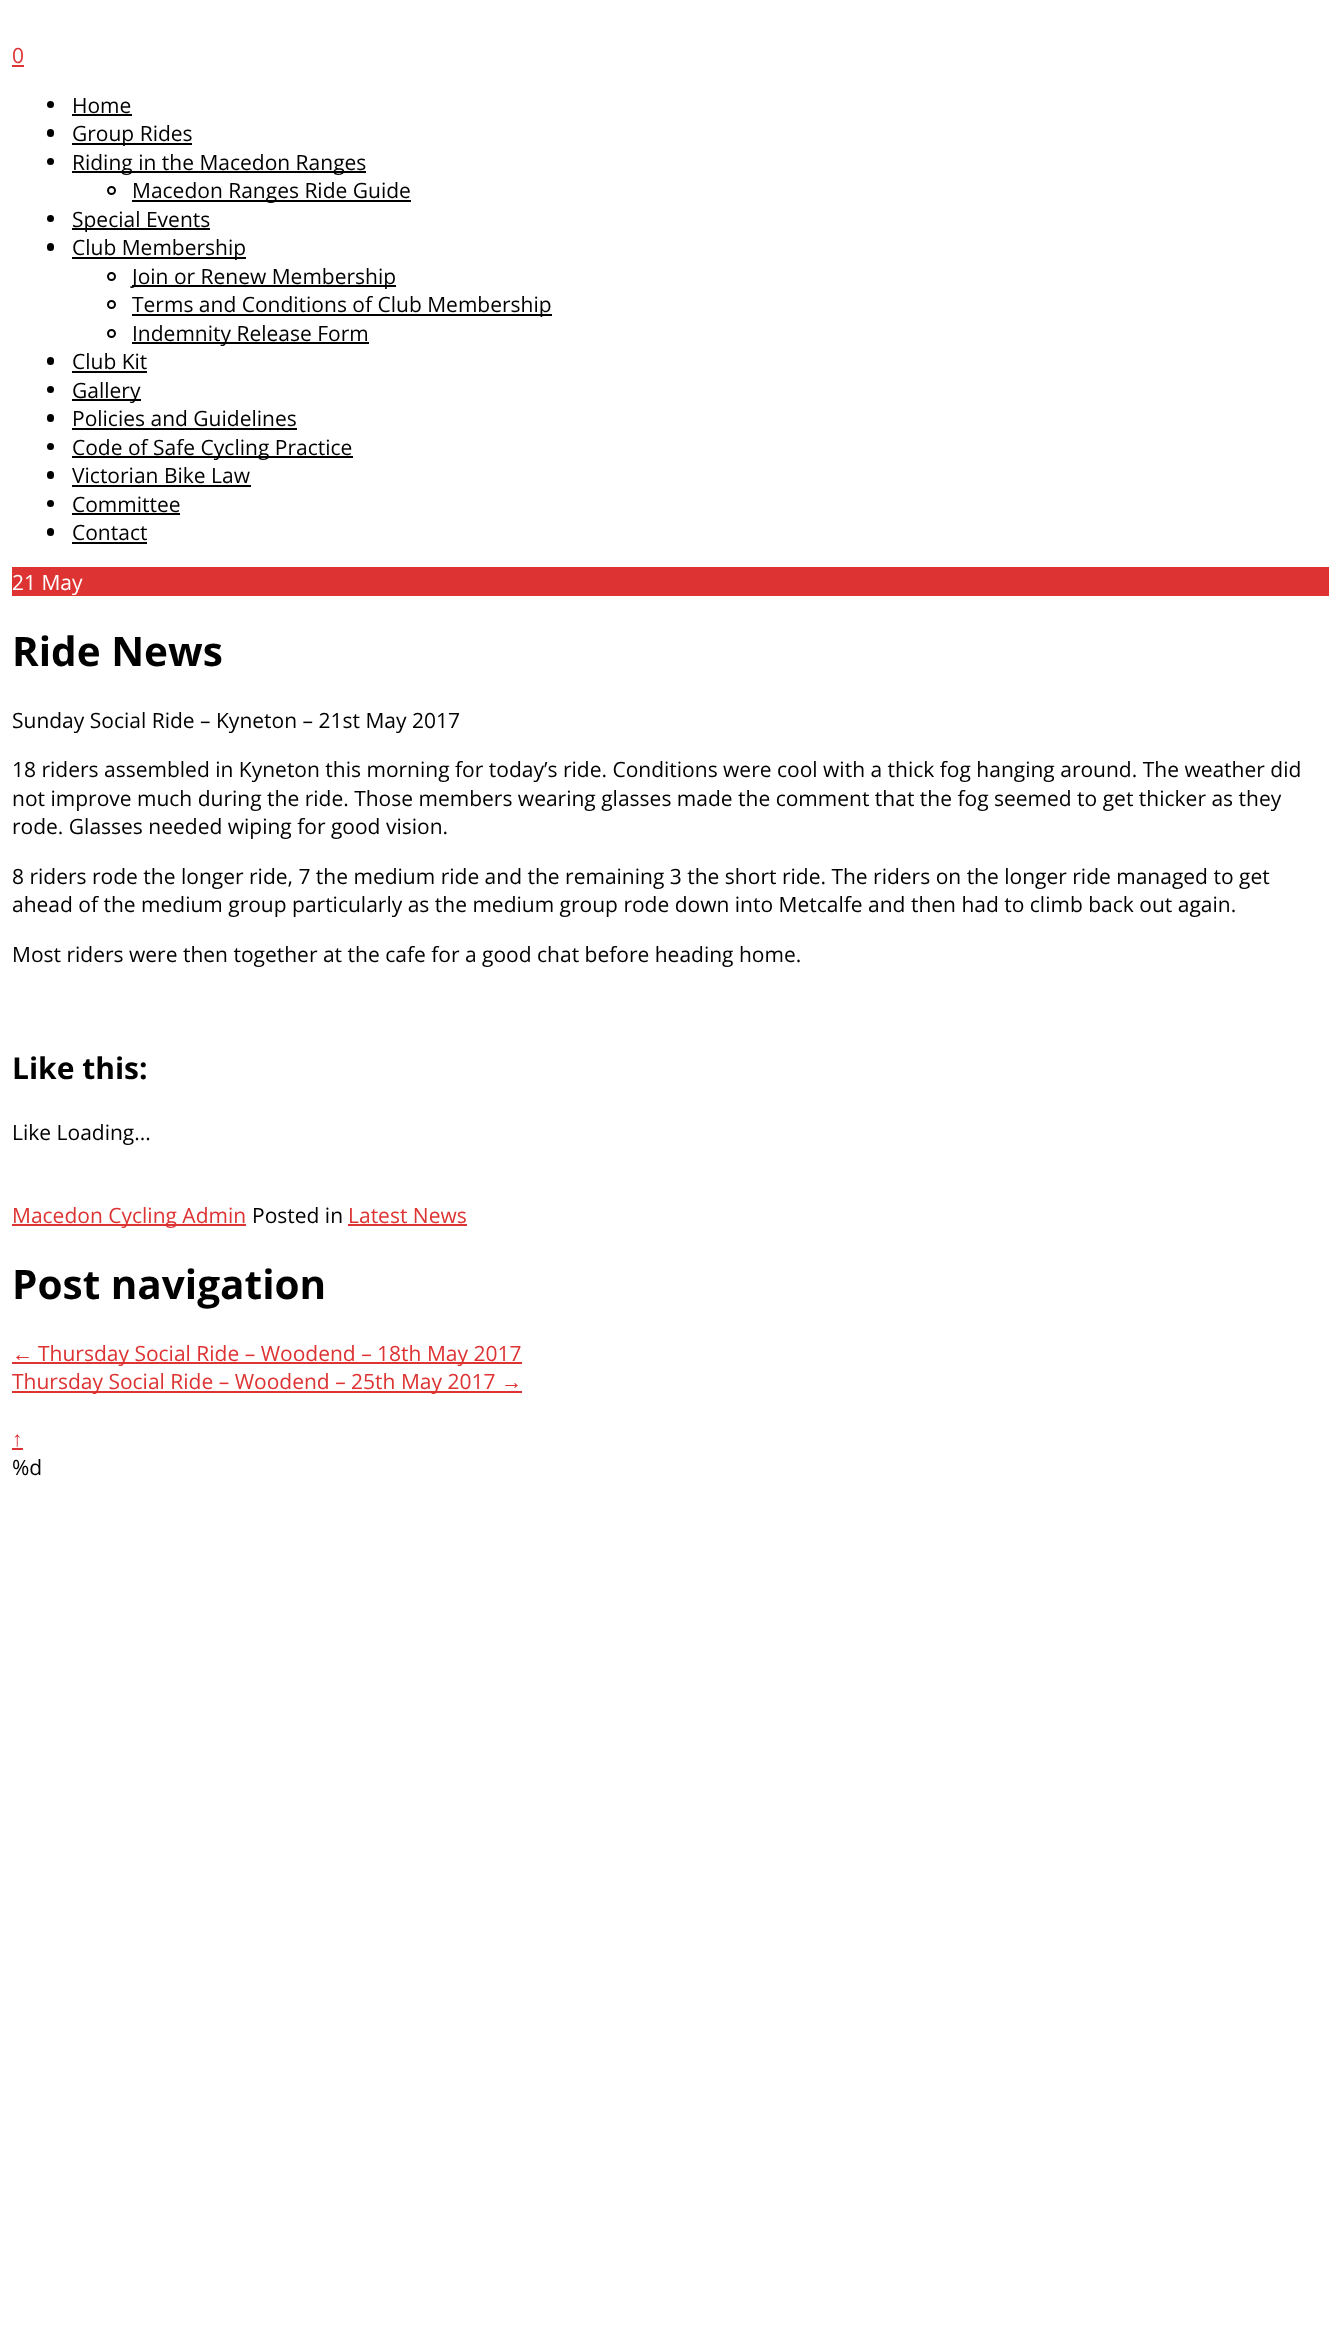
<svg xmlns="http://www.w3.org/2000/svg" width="1340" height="2343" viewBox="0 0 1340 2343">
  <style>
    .t1 { font: 21px Open Sans; fill: #d33; }
    .t2 { font: 21px Open Sans; fill: #000; }
    .t3 { font: 21px Open Sans; fill: #fff; }
    .t4 { font: bold 40.5px Open Sans; fill: #000; }
    .t5 { font: bold 30px Open Sans; fill: #000; }
    .t6 { font: 21px Liberation Sans; fill: #d33; }
  </style>
  <rect width="100%" height="100%" fill="#fff"/>
  <text x="12" y="63" class="t1">0</text>
  <rect x="12" y="65" width="12" height="2" fill="#d33"/>
  <circle cx="50.5" cy="104.5" r="3.5" fill="#000"/>
  <text x="72" y="113" class="t2">Home</text>
  <rect x="72" y="114" width="60" height="2" fill="#000"/>
  <rect x="47" y="129" width="7" height="8" rx="3.5" fill="#000"/>
  <rect x="72" y="143" width="120" height="2" fill="#000"/>
  <text x="72" y="141" class="t2">Group Rides</text>
  <circle cx="50.5" cy="161.5" r="3.5" fill="#000"/>
  <rect x="72" y="171" width="294" height="2" fill="#000"/>
  <text x="72" y="170" class="t2">Riding in the Macedon Ranges</text>
  <circle cx="111.5" cy="190.5" r="3.5" fill="none" stroke="#000" stroke-width="2"/>
  <rect x="132" y="200" width="279" height="2" fill="#000"/>
  <text x="132" y="198" class="t2">Macedon Ranges Ride Guide</text>
  <circle cx="50.5" cy="218.5" r="3.5" fill="#000"/>
  <rect x="72" y="228" width="138" height="2" fill="#000"/>
  <text x="72" y="227" class="t2">Special Events</text>
  <rect x="47" y="243" width="7" height="8" rx="3.5" fill="#000"/>
  <rect x="72" y="257" width="174" height="2" fill="#000"/>
  <text x="72" y="255" class="t2">Club Membership</text>
  <circle cx="111.5" cy="276.5" r="3.5" fill="none" stroke="#000" stroke-width="2"/>
  <rect x="132" y="285" width="264" height="2" fill="#000"/>
  <text x="132" y="284" class="t2">Join or Renew Membership</text>
  <circle cx="111.5" cy="304.5" r="3.5" fill="none" stroke="#000" stroke-width="2"/>
  <rect x="132" y="314" width="420" height="2" fill="#000"/>
  <text x="132" y="312" class="t2">Terms and Conditions of Club Membership</text>
  <circle cx="111.5" cy="333.5" r="3.5" fill="none" stroke="#000" stroke-width="2"/>
  <rect x="132" y="342" width="237" height="2" fill="#000"/>
  <text x="132" y="341" class="t2">Indemnity Release Form</text>
  <rect x="47" y="357" width="7" height="8" rx="3.5" fill="#000"/>
  <text x="72" y="369" class="t2">Club Kit</text>
  <rect x="72" y="371" width="75" height="2" fill="#000"/>
  <circle cx="50.5" cy="389.5" r="3.5" fill="#000"/>
  <rect x="72" y="399" width="69" height="2" fill="#000"/>
  <text x="72" y="398" class="t2">Gallery</text>
  <rect x="47" y="414" width="7" height="8" rx="3.5" fill="#000"/>
  <text x="72" y="426" class="t2">Policies and Guidelines</text>
  <rect x="72" y="428" width="225" height="2" fill="#000"/>
  <circle cx="50.5" cy="446.5" r="3.5" fill="#000"/>
  <rect x="72" y="456" width="281" height="2" fill="#000"/>
  <text x="72" y="455" class="t2">Code of Safe Cycling Practice</text>
  <rect x="47" y="471" width="7" height="8" rx="3.5" fill="#000"/>
  <text x="72" y="483" class="t2">Victorian Bike Law</text>
  <rect x="72" y="485" width="179" height="2" fill="#000"/>
  <circle cx="50.5" cy="503.5" r="3.5" fill="#000"/>
  <text x="72" y="512" class="t2">Committee</text>
  <rect x="72" y="513" width="108" height="2" fill="#000"/>
  <rect x="47" y="528" width="7" height="8" rx="3.5" fill="#000"/>
  <text x="72" y="540" class="t2">Contact</text>
  <rect x="72" y="542" width="75" height="2" fill="#000"/>
  <rect x="12" y="567" width="1317" height="29" fill="#d33"/>
  <text x="12" y="590" class="t3">21 May</text>
  <text x="12" y="666" class="t4">Ride News</text>
  <text x="12" y="728" class="t2">Sunday Social Ride – Kyneton – 21st May 2017</text>
  <text x="12" y="777" class="t2">18 riders assembled in Kyneton this morning for today’s ride. Conditions were cool with a thick fog hanging around. The weather did</text>
  <text x="12" y="806" class="t2">not improve much during the ride. Those members wearing glasses made the comment that the fog seemed to get thicker as they</text>
  <text x="12" y="834" class="t2">rode. Glasses needed wiping for good vision.</text>
  <text x="12" y="884" class="t2">8 riders rode the longer ride, 7 the medium ride and the remaining 3 the short ride. The riders on the longer ride managed to get</text>
  <text x="12" y="912" class="t2">ahead of the medium group particularly as the medium group rode down into Metcalfe and then had to climb back out again.</text>
  <text x="12" y="962" class="t2">Most riders were then together at the cafe for a good chat before heading home.</text>
  <text x="12" y="1079" class="t5">Like this:</text>
  <text x="12" y="1140" class="t2">Like Loading...</text>
  <rect x="12" y="1224" width="234" height="2" fill="#d33"/>
  <text x="12" y="1223" class="t1">Macedon Cycling Admin</text>
  <text x="252" y="1223" class="t2">Posted in</text>
  <text x="348" y="1223" class="t1">Latest News</text>
  <rect x="348" y="1224" width="119" height="2" fill="#d33"/>
  <text x="12" y="1299" class="t4">Post navigation</text>
  <text x="12" y="1361" class="t6">←</text>
  <rect x="12" y="1362" width="510" height="2" fill="#d33"/>
  <text x="38" y="1361" class="t1">Thursday Social Ride – Woodend – 18th May 2017</text>
  <rect x="12" y="1391" width="510" height="2" fill="#d33"/>
  <text x="12" y="1389" class="t1">Thursday Social Ride – Woodend – 25th May 2017</text>
  <text x="501" y="1389" class="t6">→</text>
  <text x="12" y="1446" class="t6">↑</text>
  <rect x="12" y="1448" width="11" height="2" fill="#d33"/>
  <text x="12" y="1475" class="t2">%d</text>
</svg>
